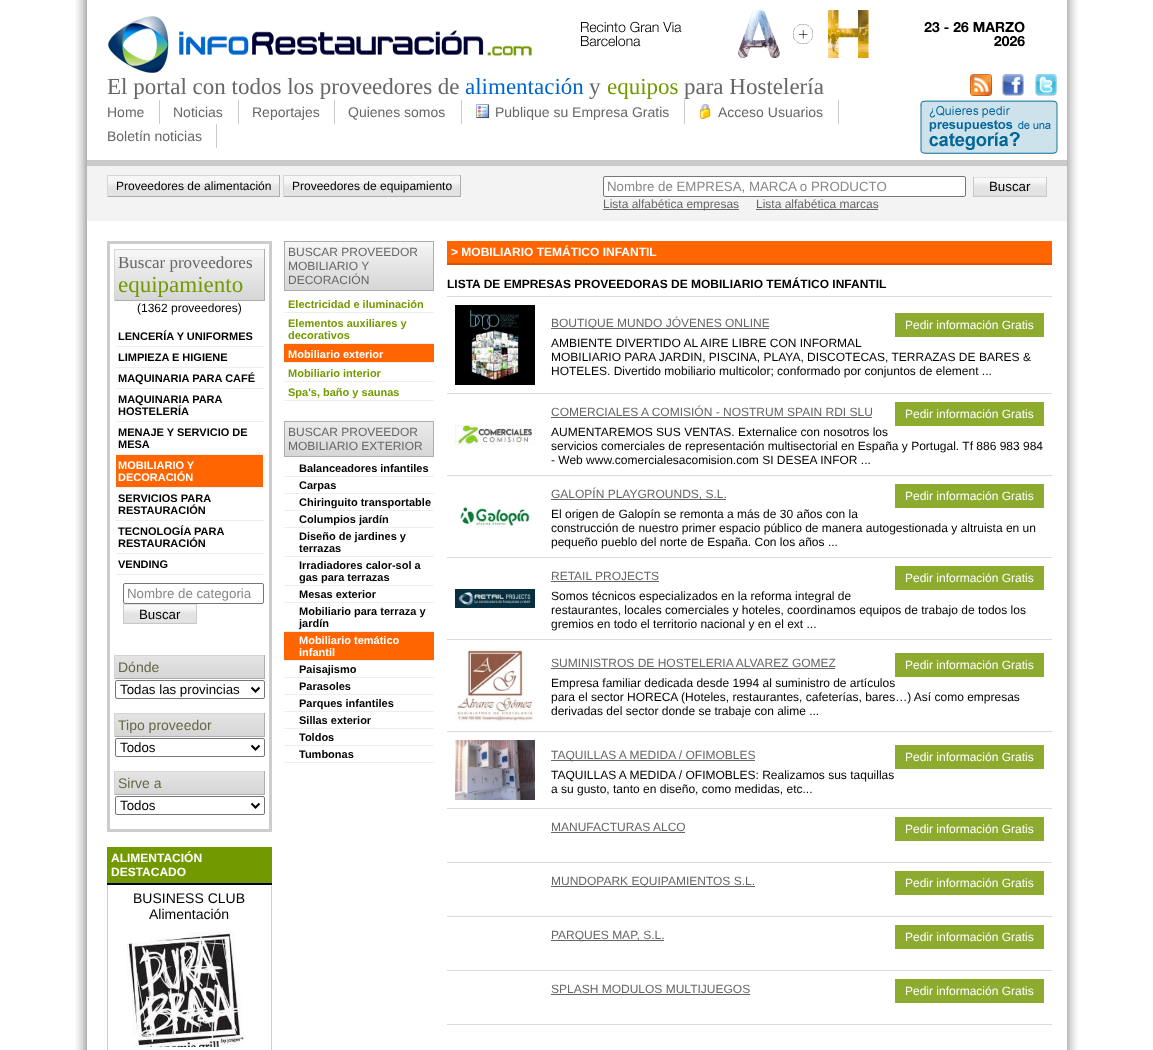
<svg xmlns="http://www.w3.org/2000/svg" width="1153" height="1050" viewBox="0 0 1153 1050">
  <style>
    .t1 { font: 23px Liberation Serif; fill: #666; }
    .t2 { font: 23px Liberation Serif; fill: #06c; }
    .t3 { font: 23px Liberation Serif; fill: #739900; }
    .t4 { font: 14px Liberation Sans; fill: #666; }
    .t5 { font: 12px Liberation Sans; fill: #000; }
    .t6 { font: 13.3px Liberation Sans; fill: #888; }
    .t7 { font: 13.3px Liberation Sans; fill: #000; }
    .t8 { font: 12px Liberation Sans; fill: #666; }
    .t9 { font: 17px Liberation Serif; fill: #666; }
    .t10 { font: bold 11px Liberation Sans; fill: #000; }
    .t11 { font: bold 11px Liberation Sans; fill: #fff; }
    .t12 { font: 14px Liberation Sans; fill: #664; }
    .t13 { font: bold 12px Liberation Sans; fill: #fff; }
    .t14 { font: 14px Liberation Sans; fill: #000; }
    .t15 { font: bold 11px Liberation Sans; fill: #739900; }
    .t16 { font: bold 12px Liberation Sans; fill: #000; }
    .t17 { font: 12px Liberation Sans; fill: #fff; }
  </style>
  <rect width="100%" height="100%" fill="#fff"/>
  <image x="75" y="0" width="1003" height="1050" href="images/1.png"/>
  <rect x="1066" y="0" width="1" height="1050" fill="#fff"/>
  <image x="108" y="16" width="424" height="57" href="images/2.png"/>
  <image x="581" y="10" width="444" height="48" href="images/3.png"/>
  <text x="107" y="94" class="t1">El portal con todos los proveedores de</text>
  <text x="465" y="94" class="t2">alimentación</text>
  <text x="589" y="94" class="t1">y</text>
  <text x="607" y="94" class="t3">equipos</text>
  <text x="684" y="94" class="t1">para Hostelería</text>
  <image x="970" y="74" width="22" height="22" href="images/4.png"/>
  <image x="1002" y="74" width="22" height="22" href="images/5.png"/>
  <image x="1035" y="74" width="22" height="22" href="images/6.png"/>
  <rect x="87" y="160" width="980" height="6" fill="#cacaca"/>
  <rect x="159" y="100" width="1" height="24" fill="#cacaca"/>
  <text x="107" y="117" class="t4">Home</text>
  <rect x="238" y="100" width="1" height="24" fill="#cacaca"/>
  <text x="173" y="117" class="t4">Noticias</text>
  <rect x="334" y="100" width="1" height="24" fill="#cacaca"/>
  <text x="252" y="117" class="t4">Reportajes</text>
  <rect x="461" y="100" width="1" height="24" fill="#cacaca"/>
  <text x="348" y="117" class="t4">Quienes somos</text>
  <rect x="684" y="100" width="1" height="24" fill="#cacaca"/>
  <image x="476" y="104" width="14" height="15" href="images/7.png"/>
  <text x="495" y="117" class="t4">Publique su Empresa Gratis</text>
  <rect x="838" y="100" width="1" height="24" fill="#cacaca"/>
  <image x="699" y="104" width="12" height="15" href="images/8.png"/>
  <text x="718" y="117" class="t4">Acceso Usuarios</text>
  <rect x="216" y="124" width="1" height="24" fill="#cacaca"/>
  <text x="107" y="141" class="t4">Boletín noticias</text>
  <image x="920" y="100" width="138" height="54" href="images/9.png"/>
  <rect x="87" y="166" width="980" height="55" fill="#f3f3f3"/>
  <rect x="108" y="176" width="171" height="7" fill="#f6f6f6"/>
  <image x="108" y="183" width="171" height="13" href="images/10.png"/>
  <text x="116" y="190" class="t5">Proveedores de alimentación</text>
  <rect x="107" y="175" width="173" height="1" fill="#d5d5d5"/>
  <rect x="279" y="175" width="1" height="22" fill="#aeaeae"/>
  <rect x="107" y="196" width="173" height="1" fill="#aeaeae"/>
  <rect x="107" y="175" width="1" height="22" fill="#d5d5d5"/>
  <rect x="284" y="176" width="176" height="7" fill="#f6f6f6"/>
  <image x="284" y="183" width="176" height="13" href="images/11.png"/>
  <text x="292" y="190" class="t5">Proveedores de equipamiento</text>
  <rect x="283" y="175" width="178" height="1" fill="#d5d5d5"/>
  <rect x="460" y="175" width="1" height="22" fill="#aeaeae"/>
  <rect x="283" y="196" width="178" height="1" fill="#aeaeae"/>
  <rect x="283" y="175" width="1" height="22" fill="#d5d5d5"/>
  <rect x="603.5" y="176.5" width="362" height="20" rx="1.5" fill="#fff" stroke="#767676"/>
  <text x="607" y="191" class="t6">Nombre de EMPRESA, MARCA o PRODUCTO</text>
  <image x="974" y="178" width="72" height="18" href="images/12.png"/>
  <rect x="973" y="177" width="74" height="1" fill="#e4e4e4"/>
  <rect x="1046" y="177" width="1" height="20" fill="#ccc"/>
  <rect x="973" y="196" width="74" height="1" fill="#c9c9c9"/>
  <rect x="973" y="177" width="1" height="20" fill="#cacaca"/>
  <text x="989" y="191" class="t7">Buscar</text>
  <rect x="603" y="209" width="136" height="1" fill="#666"/>
  <text x="603" y="208" class="t8">Lista alfabética empresas</text>
  <text x="756" y="208" class="t8">Lista alfabética marcas</text>
  <rect x="756" y="209" width="122" height="1" fill="#666"/>
  <rect x="108.5" y="242.5" width="162" height="588" fill="none" stroke="#cdcdcd" stroke-width="3"/>
  <rect x="115" y="250" width="149" height="7" fill="#f6f6f6"/>
  <image x="115" y="257" width="149" height="43" href="images/13.png"/>
  <rect x="114" y="249" width="151" height="1" fill="#d5d5d5"/>
  <rect x="264" y="249" width="1" height="52" fill="#aeaeae"/>
  <rect x="114" y="300" width="151" height="1" fill="#aeaeae"/>
  <rect x="114" y="249" width="1" height="52" fill="#d5d5d5"/>
  <text x="118" y="268" class="t9">Buscar proveedores</text>
  <text x="118" y="292" class="t3">equipamiento</text>
  <text x="137" y="312" class="t5">(1362 proveedores)</text>
  <rect x="115" y="346" width="149" height="1" fill="#eee"/>
  <rect x="115" y="346" width="1" height="1" fill="#fff"/>
  <text x="118" y="340" class="t10">LENCERÍA Y UNIFORMES</text>
  <rect x="115" y="367" width="149" height="1" fill="#eee"/>
  <rect x="115" y="367" width="1" height="1" fill="#fff"/>
  <text x="118" y="361" class="t10">LIMPIEZA E HIGIENE</text>
  <rect x="115" y="388" width="149" height="1" fill="#eee"/>
  <rect x="115" y="388" width="1" height="1" fill="#fff"/>
  <text x="118" y="382" class="t10">MAQUINARIA PARA CAFÉ</text>
  <rect x="115" y="421" width="149" height="1" fill="#eee"/>
  <rect x="115" y="421" width="1" height="1" fill="#fff"/>
  <text x="118" y="403" class="t10">MAQUINARIA PARA</text>
  <text x="118" y="415" class="t10">HOSTELERÍA</text>
  <rect x="115" y="454" width="149" height="1" fill="#eee"/>
  <rect x="115" y="454" width="1" height="1" fill="#fff"/>
  <text x="118" y="436" class="t10">MENAJE Y SERVICIO DE</text>
  <text x="118" y="448" class="t10">MESA</text>
  <rect x="116" y="455" width="147" height="32" fill="#ff6500"/>
  <rect x="115" y="487" width="149" height="1" fill="#eee"/>
  <rect x="115" y="487" width="1" height="1" fill="#fff"/>
  <text x="118" y="469" class="t11">MOBILIARIO Y</text>
  <text x="118" y="481" class="t11">DECORACIÓN</text>
  <rect x="115" y="520" width="149" height="1" fill="#eee"/>
  <rect x="115" y="520" width="1" height="1" fill="#fff"/>
  <text x="118" y="502" class="t10">SERVICIOS PARA</text>
  <text x="118" y="514" class="t10">RESTAURACIÓN</text>
  <rect x="115" y="553" width="149" height="1" fill="#eee"/>
  <rect x="115" y="553" width="1" height="1" fill="#fff"/>
  <text x="118" y="535" class="t10">TECNOLOGÍA PARA</text>
  <text x="118" y="547" class="t10">RESTAURACIÓN</text>
  <rect x="115" y="574" width="149" height="1" fill="#eee"/>
  <rect x="115" y="574" width="1" height="1" fill="#fff"/>
  <text x="118" y="568" class="t10">VENDING</text>
  <rect x="123.5" y="583.5" width="140" height="20" rx="1.5" fill="none" stroke="#767676"/>
  <text x="127" y="598" class="t6">Nombre de categoria</text>
  <image x="124" y="605" width="72" height="18" href="images/12.png"/>
  <rect x="123" y="604" width="74" height="1" fill="#e4e4e4"/>
  <rect x="196" y="604" width="1" height="20" fill="#ccc"/>
  <rect x="123" y="623" width="74" height="1" fill="#c9c9c9"/>
  <rect x="123" y="604" width="1" height="20" fill="#cacaca"/>
  <text x="139" y="619" class="t7">Buscar</text>
  <image x="115" y="656" width="149" height="22" href="images/14.png"/>
  <rect x="114" y="655" width="151" height="1" fill="#d5d5d5"/>
  <rect x="264" y="655" width="1" height="24" fill="#aeaeae"/>
  <rect x="114" y="678" width="151" height="1" fill="#aeaeae"/>
  <rect x="114" y="655" width="1" height="24" fill="#d5d5d5"/>
  <text x="118" y="672" class="t12">Dónde</text>
  <rect x="115.5" y="680.5" width="149" height="18" rx="1.5" fill="none" stroke="#767676"/>
  <path d="M251.5 687.5L255.5 691.5L259.5 687.5" fill="none" stroke="#000" stroke-width="2"/>
  <text x="120" y="694" class="t7">Todas las provincias</text>
  <image x="115" y="714" width="149" height="22" href="images/14.png"/>
  <rect x="114" y="713" width="151" height="1" fill="#d5d5d5"/>
  <rect x="264" y="713" width="1" height="24" fill="#aeaeae"/>
  <rect x="114" y="736" width="151" height="1" fill="#aeaeae"/>
  <rect x="114" y="713" width="1" height="24" fill="#d5d5d5"/>
  <text x="118" y="730" class="t12">Tipo proveedor</text>
  <rect x="115.5" y="738.5" width="149" height="18" rx="1.5" fill="none" stroke="#767676"/>
  <path d="M251.5 745.5L255.5 749.5L259.5 745.5" fill="none" stroke="#000" stroke-width="2"/>
  <text x="120" y="752" class="t7">Todos</text>
  <image x="115" y="772" width="149" height="22" href="images/14.png"/>
  <rect x="114" y="771" width="151" height="1" fill="#d5d5d5"/>
  <rect x="264" y="771" width="1" height="24" fill="#aeaeae"/>
  <rect x="114" y="794" width="151" height="1" fill="#aeaeae"/>
  <rect x="114" y="771" width="1" height="24" fill="#d5d5d5"/>
  <text x="118" y="788" class="t12">Sirve a</text>
  <rect x="115.5" y="796.5" width="149" height="18" rx="1.5" fill="none" stroke="#767676"/>
  <path d="M251.5 803.5L255.5 807.5L259.5 803.5" fill="none" stroke="#000" stroke-width="2"/>
  <text x="120" y="810" class="t7">Todos</text>
  <rect x="107" y="847" width="165" height="36" fill="#739900"/>
  <rect x="107" y="883" width="165" height="2" fill="#003"/>
  <text x="111" y="862" class="t13">ALIMENTACIÓN</text>
  <text x="111" y="876" class="t13">DESTACADO</text>
  <rect x="271" y="885" width="1" height="165" fill="#cecece"/>
  <rect x="107" y="885" width="1" height="165" fill="#cecece"/>
  <text x="133" y="903" class="t14">BUSINESS CLUB</text>
  <text x="149" y="919" class="t14">Alimentación</text>
  <image x="127" y="932" width="119" height="115" href="images/15.png"/>
  <rect x="285" y="242" width="148" height="5" fill="#f6f6f6"/>
  <image x="285" y="247" width="148" height="43" href="images/16.png"/>
  <rect x="284.5" y="241.5" width="149" height="49" fill="none" stroke="#aeaeae"/>
  <text x="288" y="256" class="t8">BUSCAR PROVEEDOR</text>
  <text x="288" y="270" class="t8">MOBILIARIO Y</text>
  <text x="288" y="284" class="t8">DECORACIÓN</text>
  <rect x="284" y="312" width="150" height="1" fill="#eee"/>
  <text x="288" y="308" class="t15">Electricidad e iluminación</text>
  <rect x="284" y="343" width="150" height="1" fill="#eee"/>
  <text x="288" y="327" class="t15">Elementos auxiliares y</text>
  <text x="288" y="339" class="t15">decorativos</text>
  <rect x="284" y="344" width="150" height="18" fill="#ff6500"/>
  <rect x="284" y="362" width="150" height="1" fill="#eee"/>
  <text x="288" y="358" class="t11">Mobiliario exterior</text>
  <rect x="284" y="381" width="150" height="1" fill="#eee"/>
  <text x="288" y="377" class="t15">Mobiliario interior</text>
  <rect x="284" y="400" width="150" height="1" fill="#eee"/>
  <text x="288" y="396" class="t15">Spa's, baño y saunas</text>
  <image x="285" y="422" width="148" height="34" href="images/17.png"/>
  <rect x="284.5" y="421.5" width="149" height="35" fill="none" stroke="#aeaeae"/>
  <text x="288" y="436" class="t8">BUSCAR PROVEEDOR</text>
  <text x="288" y="450" class="t8">MOBILIARIO EXTERIOR</text>
  <rect x="284" y="476" width="150" height="1" fill="#eee"/>
  <text x="299" y="472" class="t10">Balanceadores infantiles</text>
  <rect x="284" y="493" width="150" height="1" fill="#eee"/>
  <text x="299" y="489" class="t10">Carpas</text>
  <rect x="284" y="510" width="150" height="1" fill="#eee"/>
  <text x="299" y="506" class="t10">Chiringuito transportable</text>
  <rect x="284" y="527" width="150" height="1" fill="#eee"/>
  <text x="299" y="523" class="t10">Columpios jardín</text>
  <rect x="284" y="556" width="150" height="1" fill="#eee"/>
  <text x="299" y="540" class="t10">Diseño de jardines y</text>
  <text x="299" y="552" class="t10">terrazas</text>
  <rect x="284" y="585" width="150" height="1" fill="#eee"/>
  <text x="299" y="569" class="t10">Irradiadores calor-sol a</text>
  <text x="299" y="581" class="t10">gas para terrazas</text>
  <rect x="284" y="602" width="150" height="1" fill="#eee"/>
  <text x="299" y="598" class="t10">Mesas exterior</text>
  <rect x="284" y="631" width="150" height="1" fill="#eee"/>
  <text x="299" y="615" class="t10">Mobiliario para terraza y</text>
  <text x="299" y="627" class="t10">jardín</text>
  <rect x="284" y="632" width="150" height="28" fill="#ff6500"/>
  <rect x="284" y="660" width="150" height="1" fill="#eee"/>
  <text x="299" y="644" class="t11">Mobiliario temático</text>
  <text x="299" y="656" class="t11">infantil</text>
  <rect x="284" y="677" width="150" height="1" fill="#eee"/>
  <text x="299" y="673" class="t10">Paisajismo</text>
  <rect x="284" y="694" width="150" height="1" fill="#eee"/>
  <text x="299" y="690" class="t10">Parasoles</text>
  <rect x="284" y="711" width="150" height="1" fill="#eee"/>
  <text x="299" y="707" class="t10">Parques infantiles</text>
  <rect x="284" y="728" width="150" height="1" fill="#eee"/>
  <text x="299" y="724" class="t10">Sillas exterior</text>
  <rect x="284" y="745" width="150" height="1" fill="#eee"/>
  <text x="299" y="741" class="t10">Toldos</text>
  <rect x="284" y="762" width="150" height="1" fill="#eee"/>
  <text x="299" y="758" class="t10">Tumbonas</text>
  <rect x="447" y="241" width="605" height="22" fill="#ff6500"/>
  <rect x="447" y="263" width="605" height="2" fill="#d55500"/>
  <text x="451" y="256" class="t13">&gt; MOBILIARIO TEMÁTICO INFANTIL</text>
  <text x="447" y="288" class="t16">LISTA DE EMPRESAS PROVEEDORAS DE MOBILIARIO TEMÁTICO INFANTIL</text>
  <rect x="447" y="1024" width="605" height="1" fill="#dcdcdc"/>
  <rect x="447" y="296" width="605" height="1" fill="#dcdcdc"/>
  <image x="455" y="305" width="80" height="80" href="images/18.png"/>
  <rect x="551" y="328" width="218" height="1" fill="#666"/>
  <text x="551" y="327" class="t8">BOUTIQUE MUNDO JÓVENES ONLINE</text>
  <rect x="895" y="313" width="149" height="24" fill="#8dab2f"/>
  <text x="905" y="329" class="t17">Pedir información Gratis</text>
  <text x="551" y="347" class="t5">AMBIENTE DIVERTIDO AL AIRE LIBRE CON INFORMAL</text>
  <text x="551" y="361" class="t5">MOBILIARIO PARA JARDIN, PISCINA, PLAYA, DISCOTECAS, TERRAZAS DE BARES &amp;</text>
  <text x="551" y="375" class="t5">HOTELES. Divertido mobiliario multicolor; conformado por conjuntos de element ...</text>
  <rect x="447" y="393" width="605" height="1" fill="#dcdcdc"/>
  <image x="455" y="425" width="80" height="20" href="images/19.png"/>
  <text x="551" y="416" class="t8">COMERCIALES A COMISIÓN - NOSTRUM SPAIN RDI SLU</text>
  <rect x="551" y="417" width="321" height="1" fill="#666"/>
  <rect x="895" y="402" width="149" height="24" fill="#8dab2f"/>
  <text x="905" y="418" class="t17">Pedir información Gratis</text>
  <text x="551" y="436" class="t5">AUMENTAREMOS SUS VENTAS. Externalice con nosotros los</text>
  <text x="551" y="450" class="t5">servicios comerciales de representación multisectorial en España y Portugal. Tf 886 983 984</text>
  <text x="551" y="464" class="t5">- Web www.comercialesacomision.com SI DESEA INFOR ...</text>
  <rect x="447" y="475" width="605" height="1" fill="#dcdcdc"/>
  <image x="459" y="502" width="73" height="26" href="images/20.png"/>
  <rect x="551" y="499" width="175" height="1" fill="#666"/>
  <text x="551" y="498" class="t8">GALOPÍN PLAYGROUNDS, S.L.</text>
  <rect x="895" y="484" width="149" height="24" fill="#8dab2f"/>
  <text x="905" y="500" class="t17">Pedir información Gratis</text>
  <text x="551" y="518" class="t5">El origen de Galopín se remonta a más de 30 años con la</text>
  <text x="551" y="532" class="t5">construcción de nuestro primer espacio público de manera autogestionada y altruista en un</text>
  <text x="551" y="546" class="t5">pequeño pueblo del norte de España. Con los años ...</text>
  <rect x="447" y="557" width="605" height="1" fill="#dcdcdc"/>
  <image x="455" y="589" width="80" height="19" href="images/21.png"/>
  <text x="551" y="580" class="t8">RETAIL PROJECTS</text>
  <rect x="551" y="581" width="108" height="1" fill="#666"/>
  <rect x="895" y="566" width="149" height="24" fill="#8dab2f"/>
  <text x="905" y="582" class="t17">Pedir información Gratis</text>
  <text x="551" y="600" class="t5">Somos técnicos especializados en la reforma integral de</text>
  <text x="551" y="614" class="t5">restaurantes, locales comerciales y hoteles, coordinamos equipos de trabajo de todos los</text>
  <text x="551" y="628" class="t5">gremios en todo el territorio nacional y en el ext ...</text>
  <rect x="447" y="639" width="605" height="1" fill="#dcdcdc"/>
  <image x="455" y="648" width="78" height="74" href="images/22.png"/>
  <text x="551" y="667" class="t8">SUMINISTROS DE HOSTELERIA ALVAREZ GOMEZ</text>
  <rect x="551" y="668" width="284" height="1" fill="#666"/>
  <rect x="895" y="653" width="149" height="24" fill="#8dab2f"/>
  <text x="905" y="669" class="t17">Pedir información Gratis</text>
  <text x="551" y="687" class="t5">Empresa familiar dedicada desde 1994 al suministro de artículos</text>
  <text x="551" y="701" class="t5">para el sector HORECA (Hoteles, restaurantes, cafeterías, bares…) Así como empresas</text>
  <text x="551" y="715" class="t5">derivadas del sector donde se trabaje con alime ...</text>
  <rect x="447" y="731" width="605" height="1" fill="#dcdcdc"/>
  <image x="455" y="740" width="80" height="60" href="images/23.png"/>
  <rect x="551" y="760" width="204" height="1" fill="#666"/>
  <text x="551" y="759" class="t8">TAQUILLAS A MEDIDA / OFIMOBLES</text>
  <rect x="895" y="745" width="149" height="24" fill="#8dab2f"/>
  <text x="905" y="761" class="t17">Pedir información Gratis</text>
  <text x="551" y="779" class="t5">TAQUILLAS A MEDIDA / OFIMOBLES: Realizamos sus taquillas</text>
  <text x="551" y="793" class="t5">a su gusto, tanto en diseño, como medidas, etc...</text>
  <rect x="447" y="808" width="605" height="1" fill="#dcdcdc"/>
  <text x="551" y="831" class="t8">MANUFACTURAS ALCO</text>
  <rect x="551" y="832" width="134" height="1" fill="#666"/>
  <rect x="895" y="817" width="149" height="24" fill="#8dab2f"/>
  <text x="905" y="833" class="t17">Pedir información Gratis</text>
  <rect x="447" y="862" width="605" height="1" fill="#dcdcdc"/>
  <rect x="551" y="886" width="204" height="1" fill="#666"/>
  <text x="551" y="885" class="t8">MUNDOPARK EQUIPAMIENTOS S.L.</text>
  <rect x="895" y="871" width="149" height="24" fill="#8dab2f"/>
  <text x="905" y="887" class="t17">Pedir información Gratis</text>
  <rect x="447" y="916" width="605" height="1" fill="#dcdcdc"/>
  <rect x="551" y="940" width="113" height="1" fill="#666"/>
  <text x="551" y="939" class="t8">PARQUES MAP, S.L.</text>
  <rect x="895" y="925" width="149" height="24" fill="#8dab2f"/>
  <text x="905" y="941" class="t17">Pedir información Gratis</text>
  <rect x="447" y="970" width="605" height="1" fill="#dcdcdc"/>
  <text x="551" y="993" class="t8">SPLASH MODULOS MULTIJUEGOS</text>
  <rect x="551" y="994" width="199" height="1" fill="#666"/>
  <rect x="895" y="979" width="149" height="24" fill="#8dab2f"/>
  <text x="905" y="995" class="t17">Pedir información Gratis</text>
</svg>
